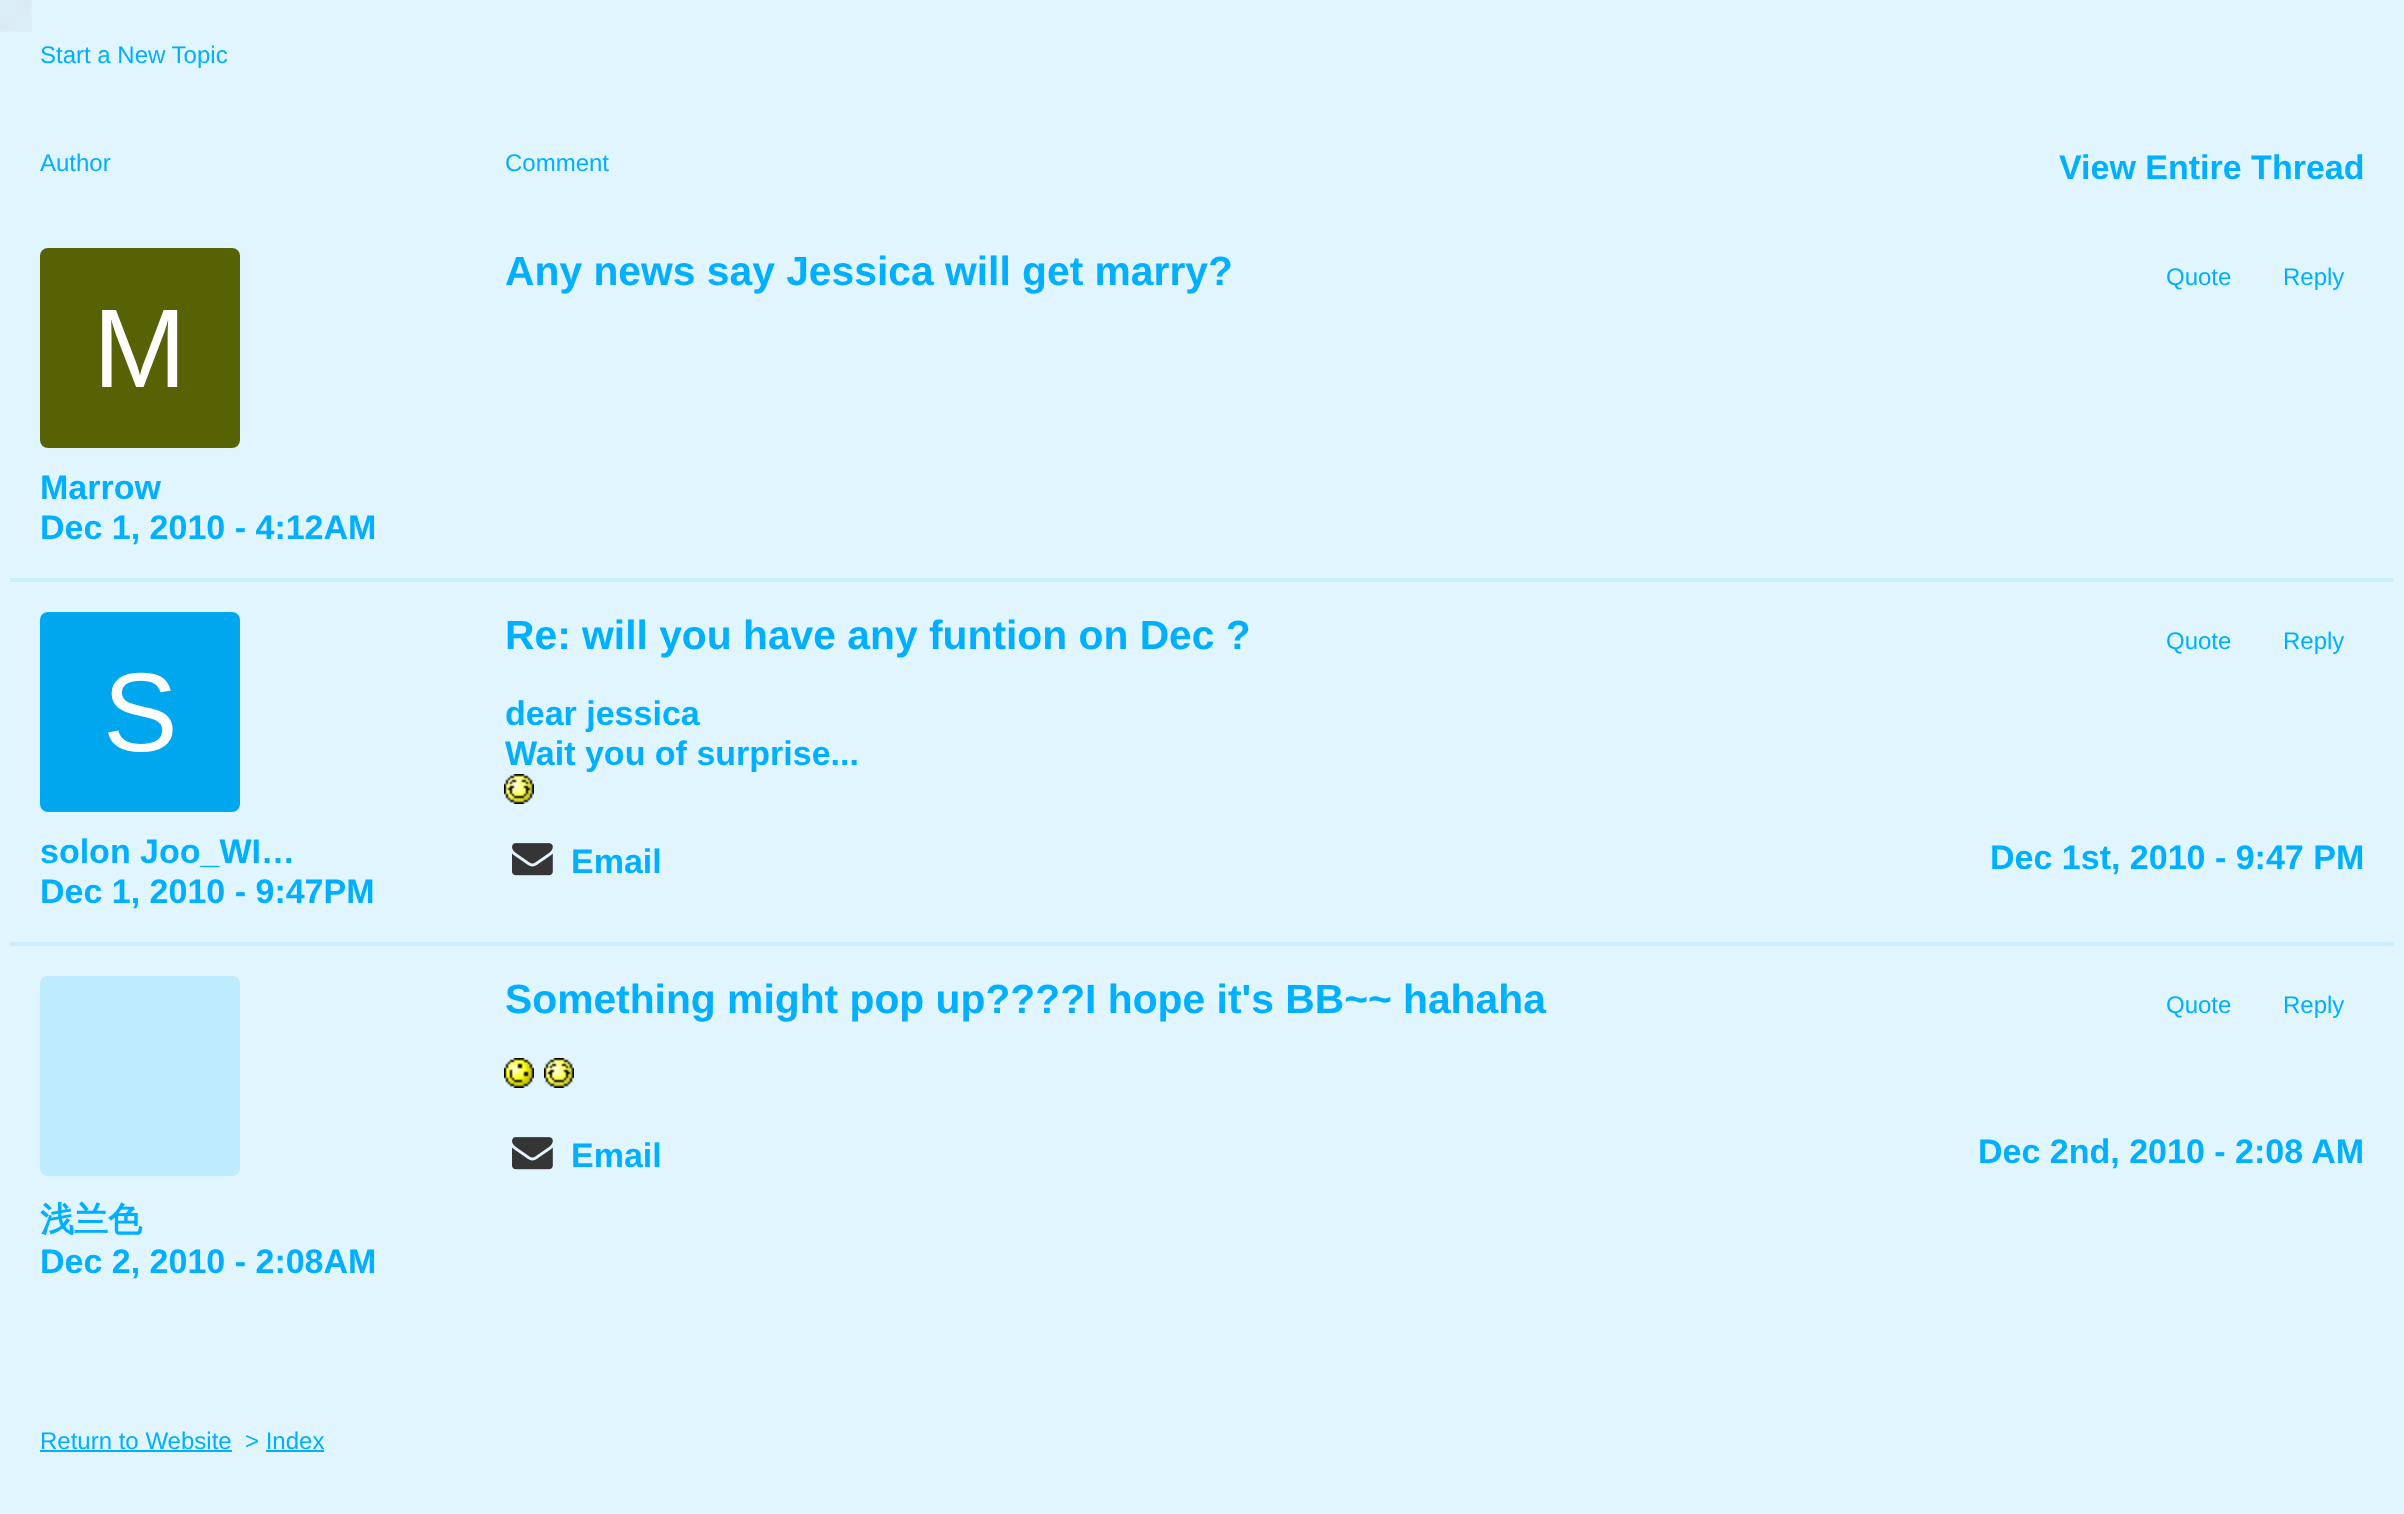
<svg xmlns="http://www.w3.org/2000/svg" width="2404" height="1514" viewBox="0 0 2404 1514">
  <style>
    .t1 { font: 24px Liberation Sans; fill: #00afff; }
    .t2 { font: bold 34px Liberation Sans; fill: #00afff; }
    .t3 { font: bold 40.8px Liberation Sans; fill: #00afff; }
    .t4 { font: 112px Liberation Sans; fill: #fff; }
    .t5 { font: bold 34px WenQuanYi Zen Hei; fill: #00afff; }
  </style>
  <rect width="100%" height="100%" fill="#e1f5fe"/>
  <image x="0" y="0" width="32" height="32" href="images/1.png"/>
  <text x="40" y="63" class="t1">Start a New Topic</text>
  <text x="40" y="171" class="t1">Author</text>
  <text x="505" y="171" class="t1">Comment</text>
  <text x="2059" y="179" class="t2">View Entire Thread</text>
  <rect x="10" y="578" width="2384" height="4" fill="#cbeefe"/>
  <text x="505" y="285" class="t3">Any news say Jessica will get marry?</text>
  <text x="2166" y="285" class="t1">Quote</text>
  <text x="2283" y="285" class="t1">Reply</text>
  <rect x="40" y="248" width="200" height="200" rx="8" fill="#566204"/>
  <text x="93" y="387" class="t4">M</text>
  <text x="40" y="499" class="t2">Marrow</text>
  <text x="40" y="539" class="t2">Dec 1, 2010 - 4:12AM</text>
  <rect x="10" y="942" width="2384" height="4" fill="#cbeefe"/>
  <rect x="40" y="612" width="200" height="200" rx="8" fill="#00a6ee"/>
  <text x="103" y="751" class="t4">S</text>
  <text x="40" y="863" class="t2">solon Joo_WI…</text>
  <text x="40" y="903" class="t2">Dec 1, 2010 - 9:47PM</text>
  <text x="505" y="649" class="t3">Re: will you have any funtion on Dec ?</text>
  <text x="2166" y="649" class="t1">Quote</text>
  <text x="2283" y="649" class="t1">Reply</text>
  <text x="505" y="725" class="t2">dear jessica</text>
  <text x="505" y="765" class="t2">Wait you of surprise...</text>
  <image x="504" y="774" width="30" height="30" href="images/2.png"/>
  <image x="512" y="843" width="41" height="33" href="images/3.png"/>
  <text x="571" y="873" class="t2">Email</text>
  <text x="1990" y="869" class="t2">Dec 1st, 2010 - 9:47 PM</text>
  <text x="505" y="1013" class="t3">Something might pop up????I hope it's BB~~</text>
  <text x="1403" y="1013" class="t3">hahaha</text>
  <text x="2166" y="1013" class="t1">Quote</text>
  <text x="2283" y="1013" class="t1">Reply</text>
  <image x="504" y="1058" width="30" height="30" href="images/4.png"/>
  <image x="544" y="1058" width="30" height="30" href="images/2.png"/>
  <image x="512" y="1137" width="41" height="33" href="images/3.png"/>
  <text x="571" y="1167" class="t2">Email</text>
  <text x="1978" y="1163" class="t2">Dec 2nd, 2010 - 2:08 AM</text>
  <rect x="40" y="976" width="200" height="200" rx="8" fill="#bfebfe"/>
  <text x="40" y="1231" class="t5">浅兰色</text>
  <text x="40" y="1273" class="t2">Dec 2, 2010 - 2:08AM</text>
  <text x="40" y="1449" class="t1">Return to Website</text>
  <rect x="40" y="1450" width="192" height="2" fill="#00afff"/>
  <text x="245" y="1449" class="t1">&gt; Index</text>
  <rect x="266" y="1450" width="58" height="2" fill="#00afff"/>
</svg>
